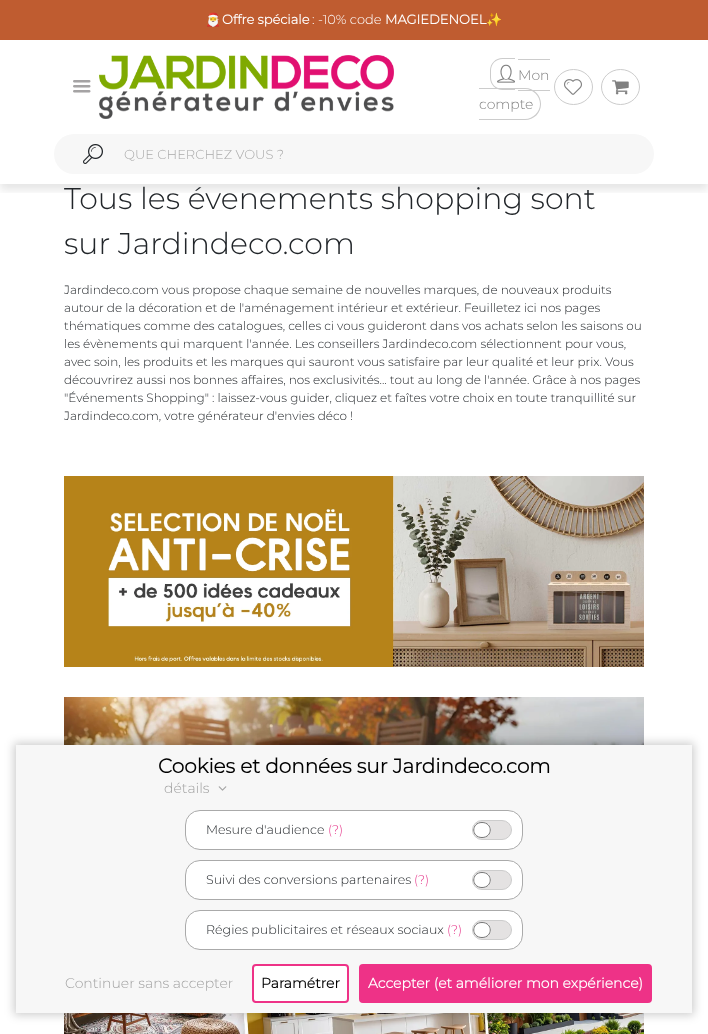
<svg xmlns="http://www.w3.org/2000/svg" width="708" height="1034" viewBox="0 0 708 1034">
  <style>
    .t1 { font: 13px Noto Color Emoji; fill: #fff; }
    .t2 { font: bold 13px Montserrat; fill: #fff; }
    .t3 { font: 300 13px Montserrat; fill: #fff; }
    .t4 { font: 300 14px Montserrat; fill: #808080; }
    .t5 { font: 300 13px Montserrat; fill: #aaa; }
    .t6 { font: 300 30px Montserrat; fill: #212529; }
    .t7 { font: 300 12px Montserrat; fill: #212529; }
    .t8 { font: bold 20px Montserrat; fill: #000; }
    .t9 { font: 300 14px Montserrat; fill: #a1a1a1; }
    .t10 { font: 300 12.6px Montserrat; fill: #212529; }
    .t11 { font: 300 12.6px Montserrat; fill: #e53388; }
    .t12 { font: bold 14px Montserrat; fill: #000; }
    .t13 { font: bold 14px Montserrat; fill: #fff; }
  </style>
  <defs>
    <clipPath id="clip1"><rect x="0" y="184" width="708" height="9"/></clipPath>
  </defs>
  <rect width="100%" height="100%" fill="#fff"/>
  <g clip-path="url(#clip1)">
    <rect x="0" y="6" width="708" height="184" fill="#0000001a" filter="blur(4px)"/>
  </g>
  <rect x="0" y="0" width="708" height="40" fill="#bf5c30"/>
  <text x="205" y="24" class="t1">🎅</text>
  <text x="222" y="24" class="t2">Offre spéciale</text>
  <text x="312" y="24" class="t3">: -10% code</text>
  <text x="385" y="24" class="t2">MAGIEDENOEL</text>
  <text x="486" y="24" class="t1">✨</text>
  <image x="73" y="80" width="18" height="13" href="images/1.png"/>
  <image x="99" y="55" width="295" height="64" href="images/2.png"/>
  <path d="M502.5 58H515V90H502.5C495.5 90 490 84.5 490 77.5V70.5C490 63.5 495.5 58 502.5 58ZM502.5 59H515V89H502.5C496 89 491 84 491 77.5V70.5C491 64 496 59 502.5 59Z" fill="#ccc" fill-rule="evenodd"/>
  <rect x="518" y="59" width="32" height="1" fill="#ccc"/>
  <rect x="518" y="90" width="32" height="1" fill="#ccc"/>
  <path d="M479 88H525C534 88 541 95 541 104C541 113 534 120 525 120H479ZM479 89H525C533 89 540 96 540 104C540 112 533 119 525 119H479Z" fill="#ccc" fill-rule="evenodd"/>
  <image x="497" y="64" width="18" height="19" href="images/3.png"/>
  <text x="518" y="80" class="t4">Mon</text>
  <text x="479" y="109" class="t4">compte</text>
  <path d="M573.5 69.5C584 69.5 592.5 77.5 592.5 87C592.5 96.5 584 104.5 573.5 104.5C563 104.5 554.5 96.5 554.5 87C554.5 77.5 563 69.5 573.5 69.5Z" fill="none" stroke="#ccc"/>
  <image x="564" y="79" width="18" height="16" href="images/4.png"/>
  <path d="M620.5 69.5C631 69.5 639.5 77.5 639.5 87C639.5 96.5 631 104.5 620.5 104.5C610 104.5 601.5 96.5 601.5 87C601.5 77.5 610 69.5 620.5 69.5Z" fill="none" stroke="#ccc"/>
  <image x="612" y="80" width="17" height="15" href="images/5.png"/>
  <rect x="54" y="134" width="600" height="40" rx="20" fill="#f7f7f7"/>
  <image x="83" y="144" width="20" height="20" href="images/6.png"/>
  <text x="124" y="159" class="t5">QUE CHERCHEZ VOUS ?</text>
  <text x="64" y="209" class="t6">Tous les évenements shopping sont</text>
  <text x="64" y="254" class="t6">sur Jardindeco.com</text>
  <text x="64" y="294" class="t7">Jardindeco.com vous propose chaque semaine de nouvelles marques, de nouveaux produits</text>
  <text x="64" y="312" class="t7">autour de la décoration et de l'aménagement intérieur et extérieur. Feuilletez ici nos pages</text>
  <text x="64" y="330" class="t7">thématiques comme des catalogues, celles ci vous guideront dans vos achats selon les saisons ou</text>
  <text x="64" y="348" class="t7">les évènements qui marquent l'année. Les conseillers Jardindeco.com sélectionnent pour vous,</text>
  <text x="64" y="366" class="t7">avec soin, les produits et les marques qui sauront vous satisfaire par leur qualité et leur prix. Vous</text>
  <text x="64" y="384" class="t7">découvrirez aussi nos bonnes affaires, nos exclusivités... tout au long de l'année. Grâce à nos pages</text>
  <text x="64" y="402" class="t7">"Événements Shopping" : laissez-vous guider, cliquez et faîtes votre choix en toute tranquillité sur</text>
  <text x="64" y="420" class="t7">Jardindeco.com, votre générateur d'envies déco !</text>
  <image x="64" y="476" width="580" height="191" href="images/7.png"/>
  <image x="64" y="697" width="580" height="48" href="images/8.png"/>
  <image x="64" y="1013" width="580" height="21" href="images/9.png"/>
  <rect x="14" y="743" width="680" height="272" fill="#00000033" filter="blur(5px)"/>
  <rect x="16" y="745" width="676" height="268" fill="#f7f7f7"/>
  <text x="158" y="773" class="t8">Cookies et données sur Jardindeco.com</text>
  <text x="164" y="793" class="t9">détails</text>
  <image x="218" y="786" width="9" height="5" href="images/10.png"/>
  <rect x="185.5" y="810.5" width="337" height="39" rx="14.5" fill="#fff" stroke="#aaa"/>
  <text x="206" y="834" class="t10">Mesure d'audience</text>
  <text x="328" y="834" class="t11">(?)</text>
  <rect x="472.5" y="820.5" width="39" height="19" rx="9.5" fill="#e4e2e2" stroke="#ccc"/>
  <ellipse cx="482" cy="830" rx="9" ry="8" fill="#fff"/>
  <path d="M482 822.5C493 822.5 493 837.5 482 837.5C471 837.5 471 822.5 482 822.5Z" fill="none" stroke="#757575"/>
  <rect x="185.5" y="860.5" width="337" height="39" rx="14.5" fill="#fff" stroke="#aaa"/>
  <text x="206" y="884" class="t10">Suivi des conversions partenaires</text>
  <text x="414" y="884" class="t11">(?)</text>
  <rect x="472.5" y="870.5" width="39" height="19" rx="9.5" fill="#e4e2e2" stroke="#ccc"/>
  <ellipse cx="482" cy="880" rx="9" ry="8" fill="#fff"/>
  <path d="M482 872.5C493 872.5 493 887.5 482 887.5C471 887.5 471 872.5 482 872.5Z" fill="none" stroke="#757575"/>
  <rect x="185.5" y="910.5" width="337" height="39" rx="14.5" fill="#fff" stroke="#aaa"/>
  <text x="206" y="934" class="t10">Régies publicitaires et réseaux sociaux</text>
  <text x="447" y="934" class="t11">(?)</text>
  <rect x="472.5" y="920.5" width="39" height="19" rx="9.5" fill="#e4e2e2" stroke="#ccc"/>
  <ellipse cx="482" cy="930" rx="9" ry="8" fill="#fff"/>
  <path d="M482 922.5C493 922.5 493 937.5 482 937.5C471 937.5 471 922.5 482 922.5Z" fill="none" stroke="#757575"/>
  <text x="65" y="988" class="t9">Continuer sans accepter</text>
  <rect x="253" y="965" width="95" height="37" rx="3" fill="#fff" stroke="#ee3287" stroke-width="2"/>
  <text x="261" y="988" class="t12">Paramétrer</text>
  <rect x="360" y="965" width="291" height="37" rx="3" fill="#ee3287" stroke="#ee3287" stroke-width="2"/>
  <text x="368" y="988" class="t13">Accepter (et améliorer mon expérience)</text>
</svg>
